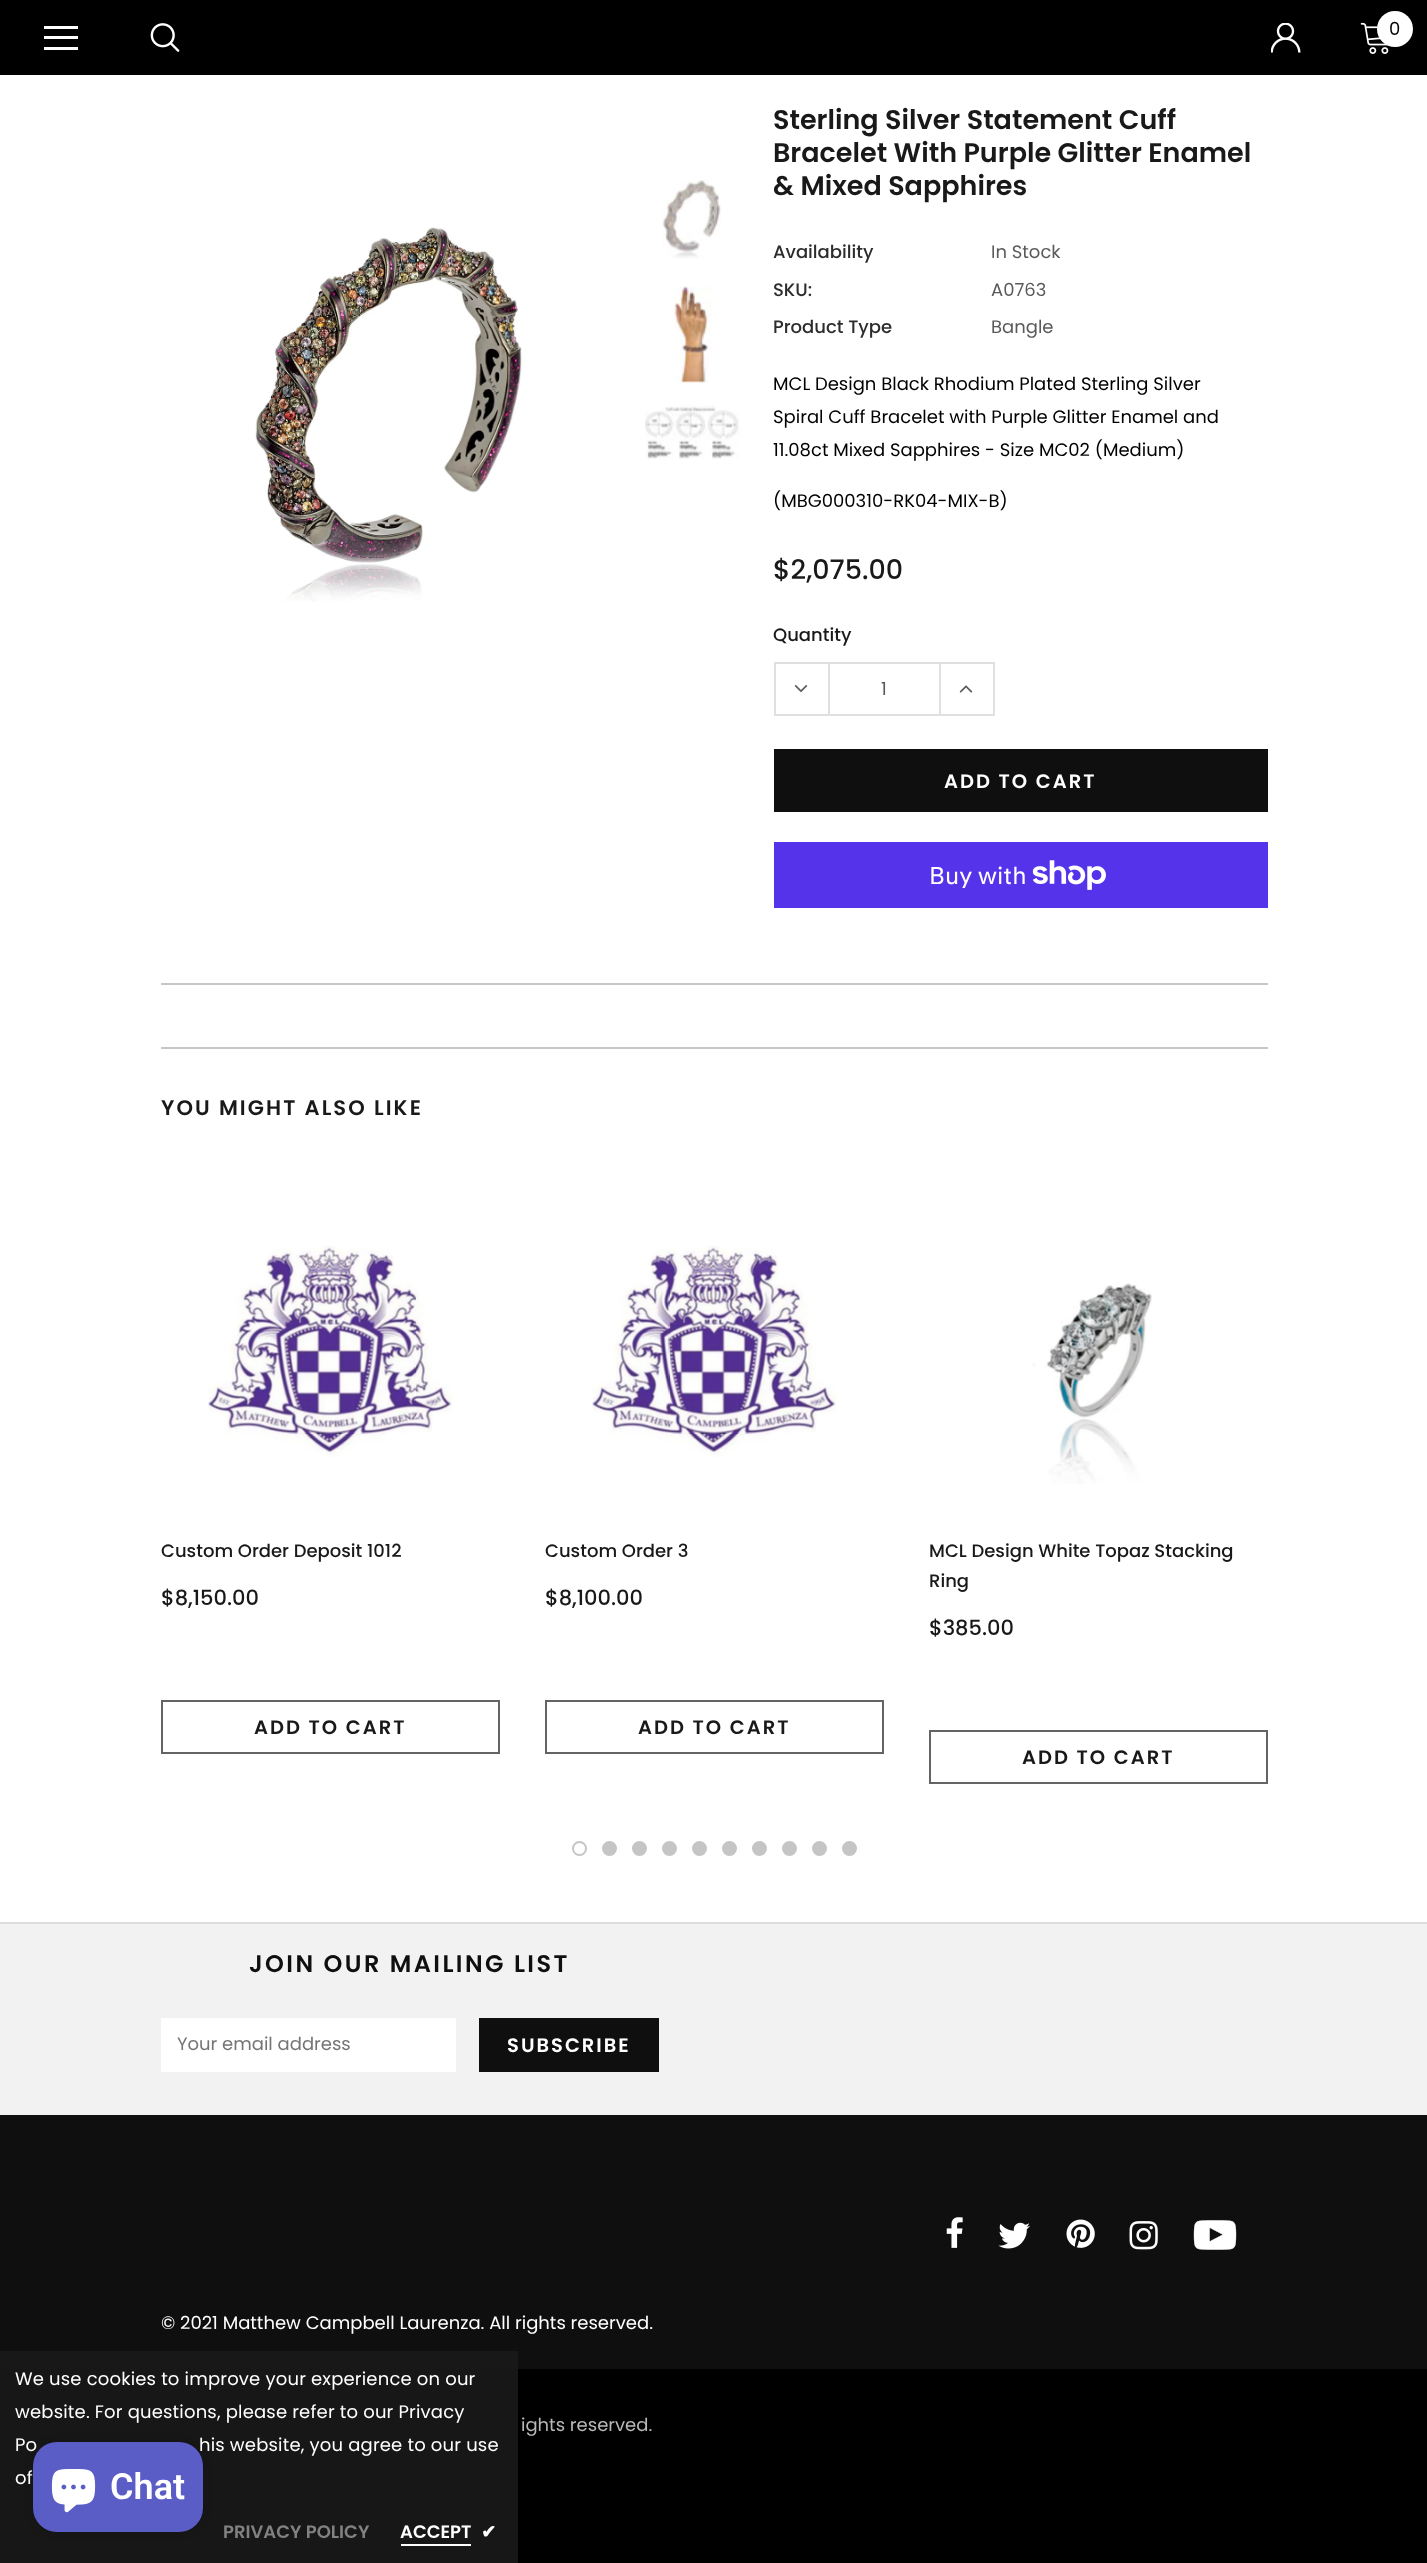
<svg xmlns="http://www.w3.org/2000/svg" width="1427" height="2563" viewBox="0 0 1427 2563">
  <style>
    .t1 { font: 18px Poppins; fill: #000; }
    .t2 { font: 600 27px Poppins; fill: #191919; }
    .t3 { font: 500 18px Poppins; fill: #2d2d2d; }
    .t4 { font: 18px Poppins; fill: #5a5a5a; }
    .t5 { font: 500 27px Poppins; fill: #191919; }
    .t6 { font: 500 18px Poppins; fill: #191919; }
    .t7 { font: 600 19.5px Poppins; letter-spacing: 2px; fill: #fff; }
    .t8 { font: 24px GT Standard; fill: #fff; }
    .t9 { font: 600 21px Poppins; letter-spacing: 2.1px; fill: #191919; }
    .t10 { font: 500 21px Poppins; fill: #191919; }
    .t11 { font: 600 19.5px Poppins; letter-spacing: 2px; fill: #191919; }
    .t12 { font: 18px Poppins; letter-spacing: 0.18px; fill: #fff; }
    .t13 { font: 600 18px Poppins; fill: #818181; }
    .t14 { font: 600 18px Poppins; fill: #fff; }
    .t15 { font: bold 18px DejaVu Sans; fill: #fff; }
    .t16 { font: 600 24px Poppins; letter-spacing: 2.4px; fill: #0f0f0f; }
    .t17 { font: 18px Poppins; fill: #757575; }
    .t18 { font: 18px Poppins; fill: #fff; }
    .t19 { font: 18px Poppins; fill: #b8b8b8; }
    .t20 { font: 600 36px Roboto; fill: #fff; }
  </style>
  <rect width="100%" height="100%" fill="#fff"/>
  <rect x="0" y="0" width="1427" height="75" fill="#000"/>
  <rect x="44" y="36" width="34" height="3" fill="#fff"/>
  <rect x="44" y="26" width="34" height="3" fill="#fff"/>
  <rect x="44" y="47" width="34" height="3" fill="#fff"/>
  <image x="150" y="23" width="30" height="29" href="images/1.png"/>
  <image x="1271" y="23" width="30" height="30" href="images/2.png"/>
  <image x="1360" y="22" width="29" height="32" href="images/3.png"/>
  <circle cx="1395" cy="29" r="18" fill="#fff"/>
  <text x="1389" y="35" class="t1">0</text>
  <image x="255" y="227" width="267" height="375" href="images/4.png"/>
  <image x="662" y="180" width="59" height="79" href="images/5.png"/>
  <image x="674" y="286" width="38" height="97" href="images/6.png"/>
  <image x="645" y="405" width="95" height="54" href="images/7.png"/>
  <text x="773" y="129" class="t2">Sterling Silver Statement Cuff</text>
  <text x="773" y="162" class="t2">Bracelet With Purple Glitter Enamel</text>
  <text x="773" y="195" class="t2">&amp; Mixed Sapphires</text>
  <text x="773" y="258" class="t3">Availability</text>
  <text x="991" y="258" class="t4">In Stock</text>
  <text x="773" y="296" class="t3">SKU:</text>
  <text x="991" y="296" class="t4">A0763</text>
  <text x="773" y="333" class="t3">Product Type</text>
  <text x="991" y="333" class="t4">Bangle</text>
  <text x="773" y="390" class="t1">MCL Design Black Rhodium Plated Sterling Silver</text>
  <text x="773" y="423" class="t1">Spiral Cuff Bracelet with Purple Glitter Enamel and</text>
  <text x="773" y="456" class="t1">11.08ct Mixed Sapphires - Size MC02 (Medium)</text>
  <text x="773" y="507" class="t1">(MBG000310-RK04-MIX-B)</text>
  <text x="773" y="579" class="t5">$2,075.00</text>
  <text x="773" y="641" class="t6">Quantity</text>
  <rect x="774" y="662" width="54" height="2" fill="#e0e0e0"/>
  <rect x="774" y="714" width="54" height="2" fill="#e0e0e0"/>
  <rect x="774" y="662" width="2" height="54" fill="#e0e0e0"/>
  <image x="794" y="685" width="14" height="8" href="images/8.png"/>
  <rect x="829" y="663" width="111" height="52" fill="none" stroke="#e0e0e0" stroke-width="2"/>
  <text x="881" y="695" class="t4">1</text>
  <rect x="941" y="662" width="54" height="2" fill="#e0e0e0"/>
  <rect x="993" y="662" width="2" height="54" fill="#e0e0e0"/>
  <rect x="941" y="714" width="54" height="2" fill="#e0e0e0"/>
  <image x="959" y="685" width="14" height="8" href="images/9.png"/>
  <rect x="774" y="749" width="494" height="63" fill="#0f0f0f"/>
  <text x="944" y="788" class="t7">ADD TO CART</text>
  <rect x="774" y="842" width="494" height="66" fill="#5433eb"/>
  <text x="929" y="884" class="t8">Buy with</text>
  <image x="1032" y="860" width="74" height="30" href="images/10.png"/>
  <rect x="161" y="983" width="1107" height="2" fill="#c7c7c7"/>
  <rect x="161" y="1047" width="1107" height="2" fill="#c7c7c7"/>
  <text x="161" y="1115" class="t9">YOU MIGHT ALSO LIKE</text>
  <image x="208" y="1245" width="245" height="212" href="images/11.png"/>
  <text x="161" y="1557" class="t6">Custom Order Deposit 1012</text>
  <text x="161" y="1605" class="t10">$8,150.00</text>
  <rect x="162" y="1701" width="337" height="52" fill="none" stroke="#646464" stroke-width="2"/>
  <text x="254" y="1734" class="t11">ADD TO CART</text>
  <image x="592" y="1245" width="245" height="212" href="images/12.png"/>
  <text x="545" y="1557" class="t6">Custom Order 3</text>
  <text x="545" y="1605" class="t10">$8,100.00</text>
  <rect x="546" y="1701" width="337" height="52" fill="none" stroke="#646464" stroke-width="2"/>
  <text x="638" y="1734" class="t11">ADD TO CART</text>
  <image x="1032" y="1283" width="120" height="201" href="images/13.png"/>
  <text x="929" y="1557" class="t6">MCL Design White Topaz Stacking</text>
  <text x="929" y="1587" class="t6">Ring</text>
  <text x="929" y="1635" class="t10">$385.00</text>
  <rect x="930" y="1731" width="337" height="52" fill="none" stroke="#646464" stroke-width="2"/>
  <text x="1022" y="1764" class="t11">ADD TO CART</text>
  <circle cx="579.5" cy="1848.5" r="6.5" fill="none" stroke="#c5c5c5" stroke-width="2"/>
  <circle cx="609.5" cy="1848.5" r="6.5" fill="#c5c5c5" stroke="#c5c5c5" stroke-width="2"/>
  <circle cx="639.5" cy="1848.5" r="6.5" fill="#c5c5c5" stroke="#c5c5c5" stroke-width="2"/>
  <circle cx="669.5" cy="1848.5" r="6.5" fill="#c5c5c5" stroke="#c5c5c5" stroke-width="2"/>
  <circle cx="699.5" cy="1848.5" r="6.5" fill="#c5c5c5" stroke="#c5c5c5" stroke-width="2"/>
  <circle cx="729.5" cy="1848.5" r="6.5" fill="#c5c5c5" stroke="#c5c5c5" stroke-width="2"/>
  <circle cx="759.5" cy="1848.5" r="6.5" fill="#c5c5c5" stroke="#c5c5c5" stroke-width="2"/>
  <circle cx="789.5" cy="1848.5" r="6.5" fill="#c5c5c5" stroke="#c5c5c5" stroke-width="2"/>
  <circle cx="819.5" cy="1848.5" r="6.5" fill="#c5c5c5" stroke="#c5c5c5" stroke-width="2"/>
  <circle cx="849.5" cy="1848.5" r="6.5" fill="#c5c5c5" stroke="#c5c5c5" stroke-width="2"/>
  <rect x="0" y="2115" width="1427" height="254" fill="#0f0f0f"/>
  <rect x="0" y="2369" width="1427" height="194" fill="#000"/>
  <rect x="0" y="2351" width="518" height="212" fill="#191919e6"/>
  <text x="15" y="2385" class="t12">We use cookies to improve your experience on our</text>
  <text x="15" y="2418" class="t12">website. For questions, please refer to our Privacy</text>
  <text x="15" y="2451" class="t12">Po</text>
  <text x="199" y="2451" class="t12">his website, you agree to our use</text>
  <text x="15" y="2484" class="t12">of</text>
  <text x="223" y="2538" class="t13">PRIVACY POLICY</text>
  <text x="400" y="2538" class="t14">ACCEPT</text>
  <rect x="401" y="2544" width="70" height="2" fill="#fff"/>
  <text x="481" y="2538" class="t15">✔</text>
  <rect x="0" y="1924" width="1427" height="191" fill="#f2f2f2"/>
  <rect x="0" y="1922" width="1427" height="2" fill="#ddd"/>
  <text x="249" y="1972" class="t16">JOIN OUR MAILING LIST</text>
  <rect x="161" y="2018" width="295" height="54" fill="#fff"/>
  <text x="177" y="2050" class="t17">Your email address</text>
  <rect x="479" y="2018" width="180" height="54" fill="#0f0f0f"/>
  <text x="507" y="2052" class="t7">SUBSCRIBE</text>
  <image x="946" y="2217" width="17" height="31" href="images/14.png"/>
  <image x="998" y="2222" width="32" height="27" href="images/15.png"/>
  <image x="1066" y="2219" width="29" height="29" href="images/16.png"/>
  <image x="1129" y="2221" width="29" height="29" href="images/17.png"/>
  <image x="1193" y="2220" width="44" height="30" href="images/18.png"/>
  <text x="161" y="2329" class="t18">© 2021 Matthew Campbell Laurenza. All rights reserved.</text>
  <text x="521" y="2431" class="t19">ights reserved.</text>
  <rect x="33" y="2442" width="170" height="90" rx="24" fill="#00000026" filter="blur(4px)"/>
  <rect x="33" y="2442" width="170" height="90" rx="24" fill="#5a5dc6"/>
  <image x="51" y="2469" width="45" height="44" href="images/19.png"/>
  <text x="110" y="2499" class="t20">Chat</text>
</svg>
